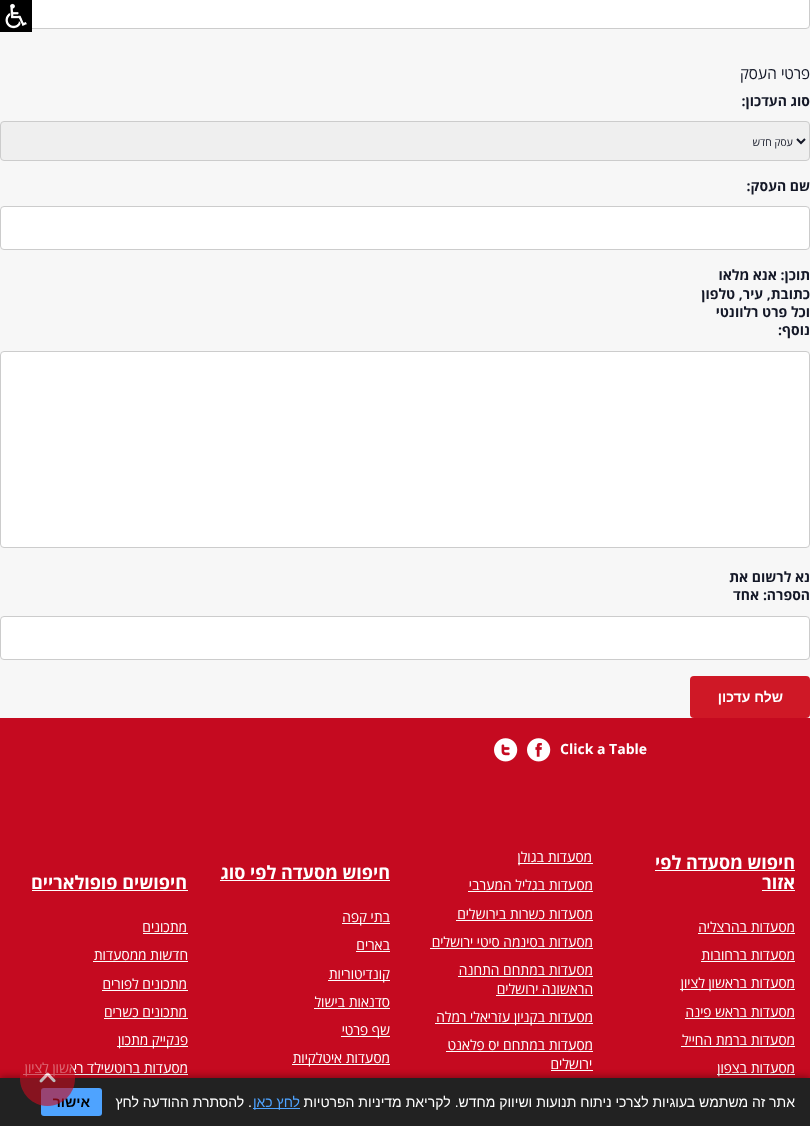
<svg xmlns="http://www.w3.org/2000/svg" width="810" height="1126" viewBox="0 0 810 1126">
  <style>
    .t1 { font: 15.5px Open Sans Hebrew; direction: rtl; fill: #141827; }
    .t2 { font: bold 14px Open Sans Hebrew; direction: rtl; fill: #141827; }
    .t3 { font: 10.5px Open Sans Hebrew; direction: rtl; fill: #141827; }
    .t4 { font: bold 14px Liberation Sans; direction: rtl; fill: #fff; }
    .t5 { font: bold 14px Open Sans Hebrew; fill: #fff; }
    .t6 { font: bold 18px Open Sans Hebrew; direction: rtl; fill: #fff; }
    .t7 { font: 14px Open Sans Hebrew; direction: rtl; fill: #fff; }
    .t8 { font: 14px Liberation Sans; direction: rtl; fill: #fff; }
    .t9 { font: 14px Liberation Sans; direction: rtl; fill: #4ea3ff; }
    .t10 { font: bold 14px Liberation Sans; direction: rtl; fill: #000; }
  </style>
  <rect width="100%" height="100%" fill="#f7f7f7"/>
  <rect x="0.5" y="-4.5" width="809" height="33" rx="3.5" fill="#fff" stroke="#ccc"/>
  <rect x="0" y="0" width="32" height="32" fill="#000"/>
  <image x="5" y="3" width="22" height="26" href="images/1.png"/>
  <text x="810" y="79" class="t1">פרטי העסק</text>
  <text x="810" y="106" class="t2">סוג העדכון:</text>
  <rect x="0.5" y="121.5" width="809" height="39" rx="3.5" fill="#efefef" stroke="#ccc"/>
  <path d="M797 139L801 143L805 139" fill="none" stroke="#141827" stroke-width="2"/>
  <text x="793" y="146" class="t3">עסק חדש</text>
  <text x="810" y="191" class="t2">שם העסק:</text>
  <rect x="0.5" y="206.5" width="809" height="43" rx="3.5" fill="#fff" stroke="#ccc"/>
  <text x="810" y="280" class="t2">תוכן: אנא מלאו</text>
  <text x="810" y="299" class="t2">כתובת, עיר, טלפון</text>
  <text x="810" y="317" class="t2">וכל פרט רלוונטי</text>
  <text x="810" y="335" class="t2">נוסף:</text>
  <rect x="0.5" y="351.5" width="809" height="196" rx="3.5" fill="#fff" stroke="#ccc"/>
  <text x="810" y="582" class="t2">נא לרשום את</text>
  <text x="810" y="600" class="t2">הספרה:</text>
  <text x="759" y="600" class="t2">אחד</text>
  <rect x="0.5" y="616.5" width="809" height="43" rx="3.5" fill="#fff" stroke="#ccc"/>
  <rect x="690" y="676" width="120" height="42" rx="4" fill="#cf1826"/>
  <text x="783" y="702" class="t4">שלח עדכון</text>
  <rect x="0" y="718" width="810" height="360" fill="#c50a20"/>
  <text x="560" y="754" class="t5">Click a Table</text>
  <image x="527" y="738" width="24" height="24" href="images/2.png"/>
  <image x="494" y="738" width="24" height="24" href="images/3.png"/>
  <text x="795" y="869" class="t6">חיפוש מסעדה לפי</text>
  <rect x="655" y="870" width="140" height="1" fill="#fff"/>
  <text x="795" y="889" class="t6">אזור</text>
  <rect x="762" y="890" width="33" height="1" fill="#fff"/>
  <text x="795" y="932" class="t7">מסעדות בהרצליה</text>
  <rect x="698" y="933" width="97" height="1" fill="#fff"/>
  <text x="795" y="960" class="t7">מסעדות ברחובות</text>
  <rect x="701" y="961" width="94" height="1" fill="#fff"/>
  <rect x="680" y="989" width="115" height="1" fill="#fff"/>
  <text x="795" y="988" class="t7">מסעדות בראשון לציון</text>
  <text x="795" y="1017" class="t7">מסעדות בראש פינה</text>
  <rect x="685" y="1018" width="110" height="1" fill="#fff"/>
  <text x="795" y="1045" class="t7">מסעדות ברמת החייל</text>
  <rect x="681" y="1046" width="114" height="1" fill="#fff"/>
  <rect x="717" y="1074" width="78" height="1" fill="#fff"/>
  <text x="795" y="1073" class="t7">מסעדות בצפון</text>
  <rect x="518" y="863" width="75" height="1" fill="#fff"/>
  <text x="592" y="862" class="t7">מסעדות בגולן</text>
  <text x="593" y="890" class="t7">מסעדות בגליל המערבי</text>
  <rect x="468" y="891" width="125" height="1" fill="#fff"/>
  <text x="593" y="919" class="t7">מסעדות כשרות בירושלים</text>
  <rect x="456" y="920" width="137" height="1" fill="#fff"/>
  <text x="593" y="947" class="t7">מסעדות בסינמה סיטי ירושלים</text>
  <rect x="430" y="948" width="163" height="1" fill="#fff"/>
  <text x="593" y="975" class="t7">מסעדות במתחם התחנה</text>
  <rect x="458" y="976" width="135" height="1" fill="#fff"/>
  <text x="593" y="994" class="t7">הראשונה ירושלים</text>
  <rect x="496" y="995" width="97" height="1" fill="#fff"/>
  <rect x="435" y="1023" width="158" height="1" fill="#fff"/>
  <text x="593" y="1022" class="t7">מסעדות בקניון עזריאלי רמלה</text>
  <text x="593" y="1050" class="t7">מסעדות במתחם יס פלאנט</text>
  <rect x="446" y="1051" width="147" height="1" fill="#fff"/>
  <text x="592" y="1069" class="t7">ירושלים</text>
  <rect x="551" y="1070" width="42" height="1" fill="#fff"/>
  <text x="390" y="879" class="t6">חיפוש מסעדה לפי סוג</text>
  <rect x="220" y="880" width="170" height="1" fill="#fff"/>
  <rect x="342" y="923" width="48" height="1" fill="#fff"/>
  <text x="390" y="922" class="t7">בתי קפה</text>
  <text x="390" y="950" class="t7">בארים</text>
  <rect x="356" y="951" width="34" height="1" fill="#fff"/>
  <rect x="328" y="980" width="62" height="1" fill="#fff"/>
  <text x="390" y="979" class="t7">קונדיטוריות</text>
  <text x="390" y="1007" class="t7">סדנאות בישול</text>
  <rect x="314" y="1008" width="76" height="1" fill="#fff"/>
  <rect x="341" y="1036" width="49" height="1" fill="#fff"/>
  <text x="390" y="1035" class="t7">שף פרטי</text>
  <rect x="292" y="1064" width="98" height="1" fill="#fff"/>
  <text x="390" y="1063" class="t7">מסעדות איטלקיות</text>
  <text x="187" y="889" class="t6">חיפושים פופולאריים</text>
  <rect x="32" y="890" width="156" height="1" fill="#fff"/>
  <text x="187" y="932" class="t7">מתכונים</text>
  <rect x="143" y="933" width="45" height="1" fill="#fff"/>
  <text x="188" y="960" class="t7">חדשות ממסעדות</text>
  <rect x="93" y="961" width="95" height="1" fill="#fff"/>
  <text x="187" y="989" class="t7">מתכונים לפורים</text>
  <rect x="102" y="990" width="86" height="1" fill="#fff"/>
  <text x="187" y="1017" class="t7">מתכונים כשרים</text>
  <rect x="104" y="1018" width="84" height="1" fill="#fff"/>
  <rect x="117" y="1046" width="71" height="1" fill="#fff"/>
  <text x="188" y="1045" class="t7">פנקייק מתכון</text>
  <rect x="23" y="1074" width="165" height="1" fill="#fff"/>
  <text x="188" y="1073" class="t7">מסעדות ברוטשילד ראשון לציון</text>
  <rect x="0" y="1076" width="810" height="48" fill="#0000004d" filter="blur(3px)"/>
  <rect x="0" y="1078" width="810" height="48" fill="#222"/>
  <text x="795" y="1107" class="t8">אתר זה משתמש בעוגיות לצרכי ניתוח תנועות ושיווק מחדש. לקריאת מדיניות הפרטיות</text>
  <rect x="253" y="1108" width="47" height="1" fill="#4ea3ff"/>
  <text x="300" y="1107" class="t9">לחץ כאן</text>
  <text x="252" y="1107" class="t8">. להסתרת ההודעה לחץ</text>
  <rect x="41" y="1088" width="61" height="28" rx="3" fill="#4ea3ff"/>
  <text x="90" y="1107" class="t10">אישור</text>
  <image x="20" y="1062" width="55" height="44" href="images/4.png"/>
</svg>
